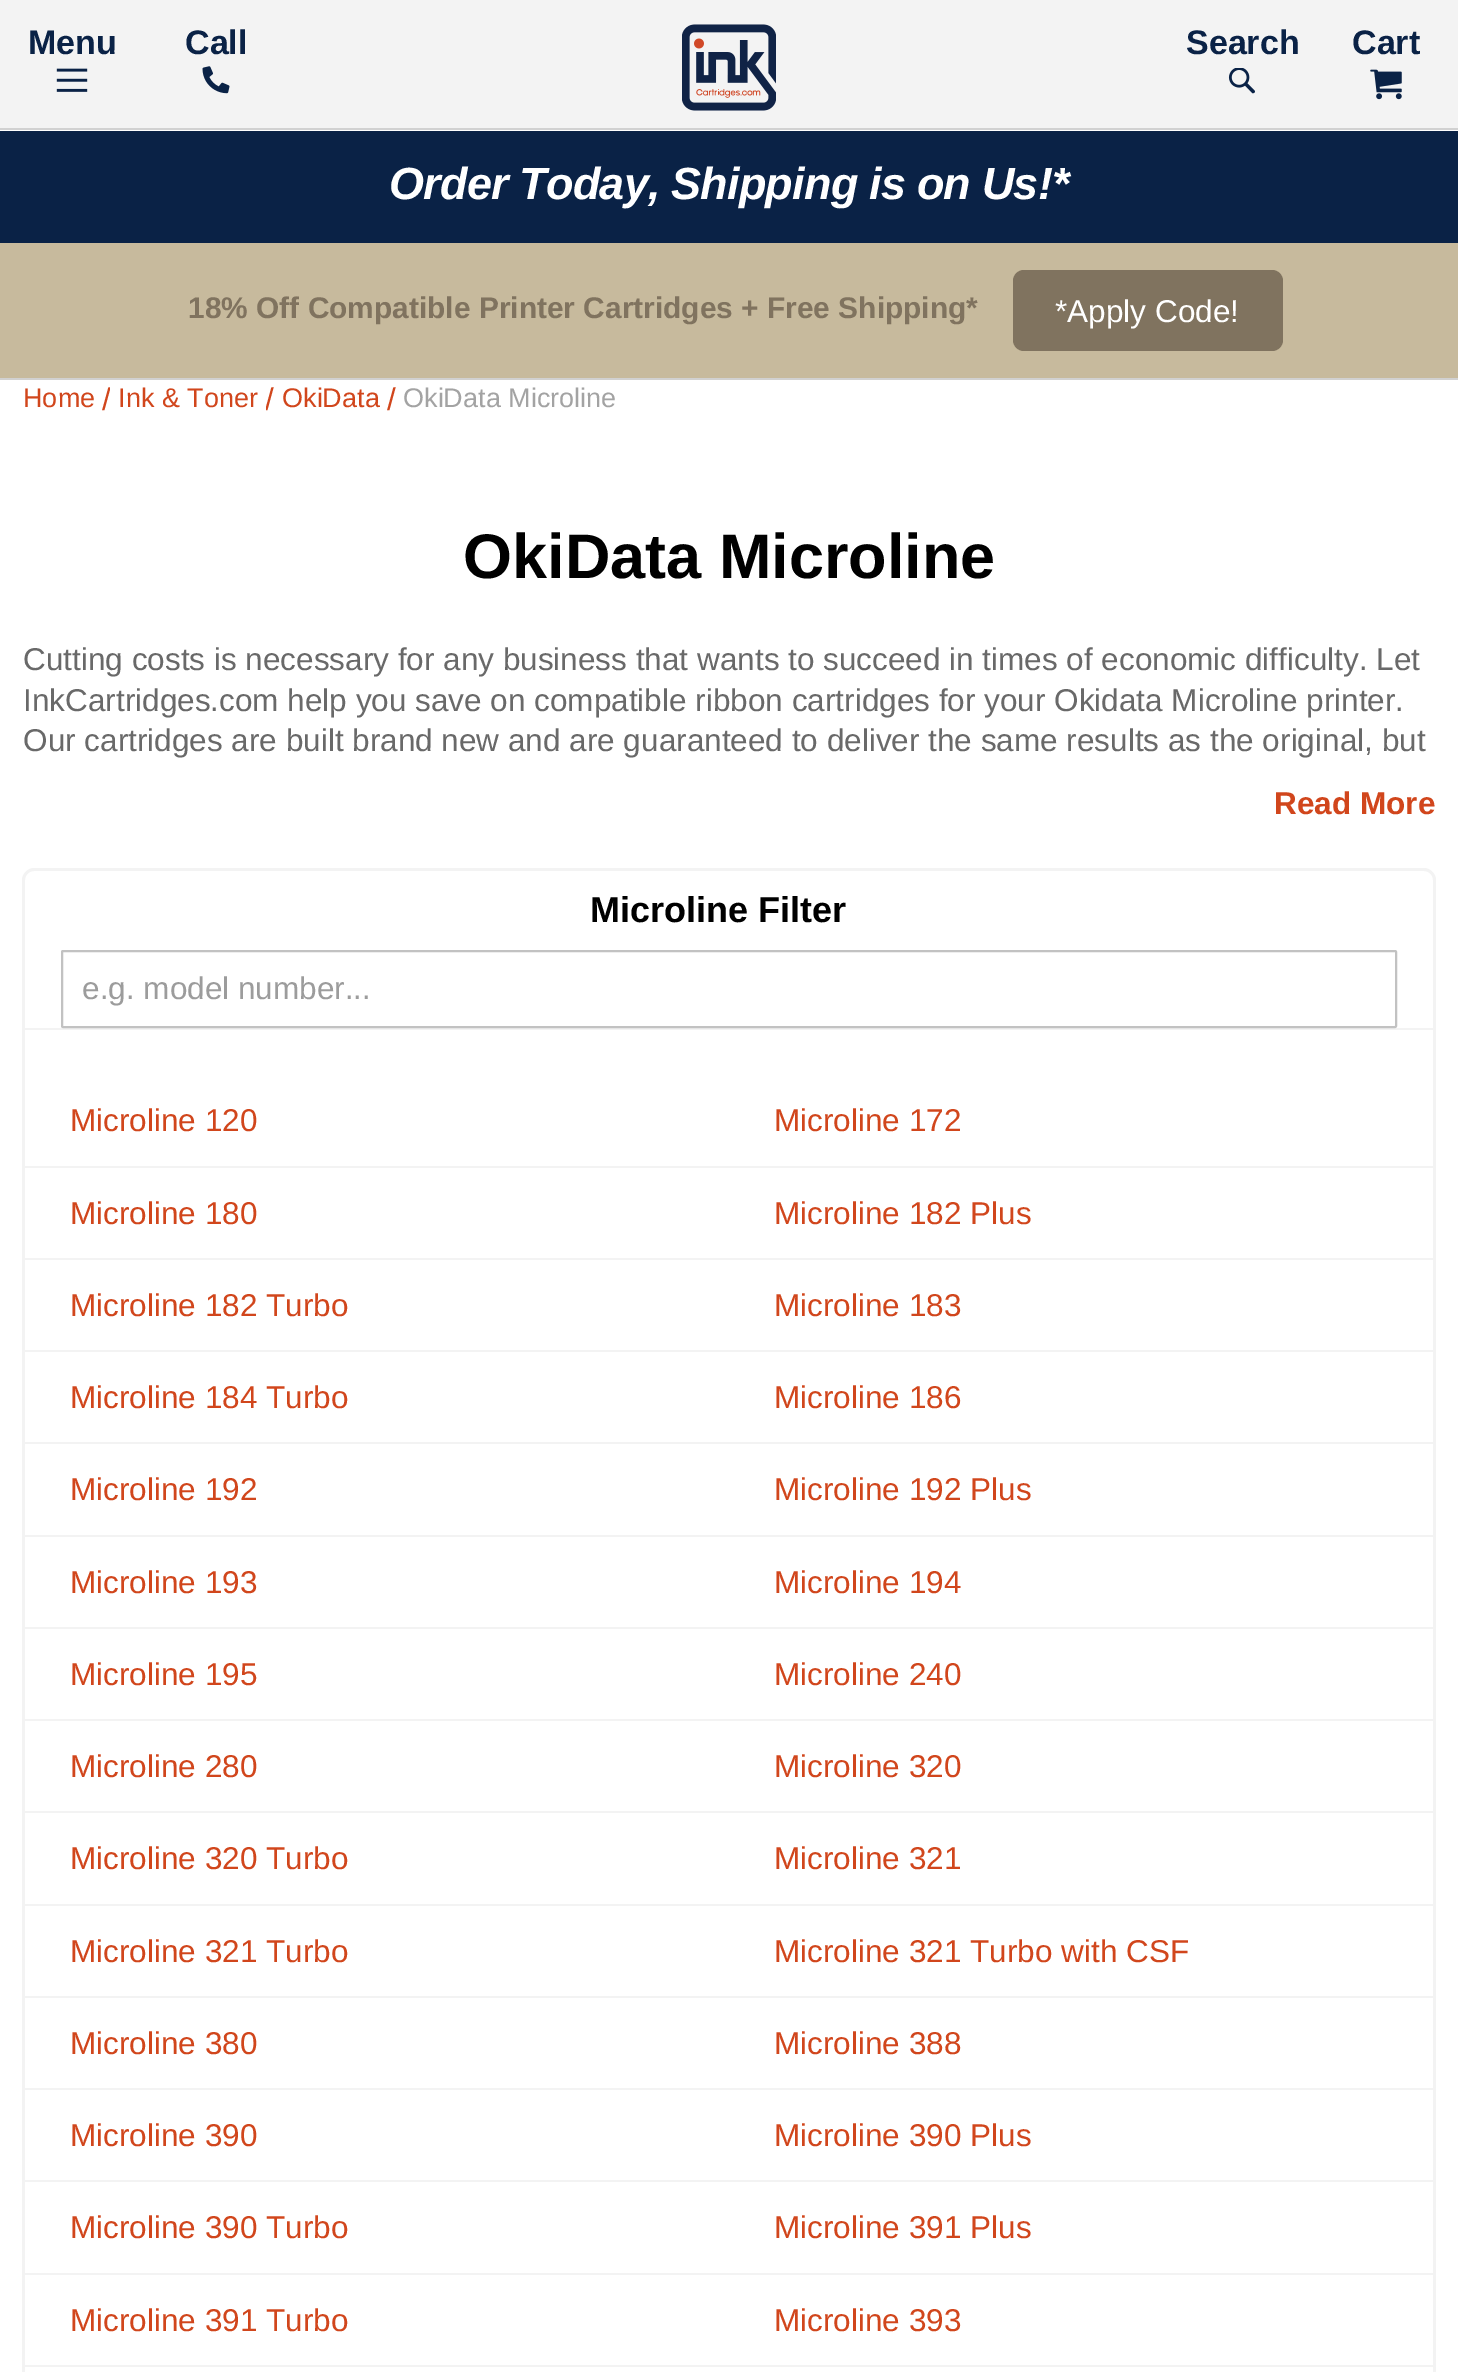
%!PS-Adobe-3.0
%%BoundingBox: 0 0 1458 2372
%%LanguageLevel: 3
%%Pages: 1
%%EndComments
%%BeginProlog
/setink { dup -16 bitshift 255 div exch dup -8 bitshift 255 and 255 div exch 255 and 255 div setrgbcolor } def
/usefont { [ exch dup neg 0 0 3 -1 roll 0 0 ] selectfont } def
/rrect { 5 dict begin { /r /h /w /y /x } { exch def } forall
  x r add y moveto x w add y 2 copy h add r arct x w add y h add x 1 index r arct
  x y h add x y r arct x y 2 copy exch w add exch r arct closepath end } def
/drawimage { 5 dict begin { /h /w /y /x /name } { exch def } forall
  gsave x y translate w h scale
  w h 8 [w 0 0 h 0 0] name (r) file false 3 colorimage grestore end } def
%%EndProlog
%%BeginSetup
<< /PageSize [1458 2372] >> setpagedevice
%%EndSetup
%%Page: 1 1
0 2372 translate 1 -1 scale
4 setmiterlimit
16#FFFFFF setink
0 0 1458 2372 rectfill
16#D1D1D1 setink
0 378 1458 2 rectfill
16#F3F3F3 setink
0 0 1458 128 rectfill
/LiberationSans-Bold 34 usefont
16#0A2246 setink
28 54 moveto (Menu) show
(img1.raw) 56 68 32 24 drawimage
185 54 moveto (Call) show
(img2.raw) 202 66 28 28 drawimage
(img3.raw) 682 24 94 87 drawimage
1186 54 moveto (Search) show
(img4.raw) 1228 68 27 26 drawimage
16#D1D1D1 setink
0 128 1458 2 rectfill
16#0A2246 setink
1352 54 moveto (Cart) show
(img5.raw) 1370 69 32 31 drawimage
0 131 1458 112 rectfill
/LiberationSans-BoldItalic 45 usefont
16#FFFFFF setink
389 199 moveto -0.8 0 (Order Today, Shipping is on Us!*) ashow
16#C7BA9D setink
0 243 1458 135 rectfill
/LiberationSans-Bold 29.9 usefont
16#80735F setink
188 318 moveto (18% Off Compatible Printer Cartridges + Free Shipping*) show
1013 270 270 81 11 rrect fill
/LiberationSans-Regular 31.5 usefont
16#FFFFFF setink
1055 322 moveto (*Apply Code!) show
/LiberationSans-Regular 27 usefont
16#D1461C setink
23 407 moveto (Home) show
gsave
101 380 9 36 rectclip
/LiberationSans-Regular 31.5 usefont
102 410 moveto (/) show
grestore
118 407 moveto (Ink & Toner) show
gsave
266 380 9 36 rectclip
/LiberationSans-Regular 31.5 usefont
265 410 moveto (/) show
grestore
282 407 moveto (OkiData) show
/LiberationSans-Regular 31.5 usefont
387 410 moveto (/) show
/LiberationSans-Regular 27 usefont
16#A3A3A3 setink
403 407 moveto (OkiData Microline) show
/LiberationSans-Bold 63 usefont
16#000000 setink
463 578 moveto (OkiData Microline) show
/LiberationSans-Regular 31.5 usefont
16#696969 setink
[
    [(Cutting costs is necessary for any business that wants to succeed in times of economic difficulty. Let) 23 670]
    [(InkCartridges.com help you save on compatible ribbon cartridges for your Okidata Microline printer.) 23 711]
    [(Our cartridges are built brand new and are guaranteed to deliver the same results as the original, but) 23 751]
] { aload pop moveto show } forall
/LiberationSans-Bold 31.5 usefont
16#D1461C setink
1274 814 moveto (Read More) show
16#F3F3F3 setink
34 868 moveto 1424 868 lineto 1430 868 1436 874 1436 880 curveto 1436 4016 lineto 1436 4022 1430 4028 1424 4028 curveto 34 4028 lineto 28 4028 22 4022 22 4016 curveto 22 880 lineto 22 874 28 868 34 868 curveto closepath 34 871 moveto 1424 871 lineto 1429 871 1433 875 1433 880 curveto 1433 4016 lineto 1433 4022 1429 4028 1424 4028 curveto 34 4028 lineto 29 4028 25 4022 25 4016 curveto 25 880 lineto 25 875 29 871 34 871 curveto closepath eofill
25 1028 1408 2 rectfill
/LiberationSans-Bold 36 usefont
16#000000 setink
590 922 moveto (Microline Filter) show
16#C2C2C2 setink
2 setlinewidth
62 951 1334 76 1 rrect stroke
/LiberationSans-Regular 31.5 usefont
16#9C9C9C setink
82 999 moveto (e.g. model number...) show
16#F3F3F3 setink
25 1166 1408 2 rectfill
16#D1461C setink
70 1131 moveto (Microline 120) show
774 1131 moveto (Microline 172) show
16#F3F3F3 setink
25 1258 1408 2 rectfill
16#D1461C setink
70 1224 moveto (Microline 180) show
774 1224 moveto (Microline 182 Plus) show
16#F3F3F3 setink
25 1350 1408 2 rectfill
16#D1461C setink
70 1316 moveto (Microline 182 Turbo) show
774 1316 moveto (Microline 183) show
16#F3F3F3 setink
25 1442 1408 2 rectfill
16#D1461C setink
70 1408 moveto (Microline 184 Turbo) show
774 1408 moveto (Microline 186) show
16#F3F3F3 setink
25 1535 1408 2 rectfill
16#D1461C setink
70 1500 moveto (Microline 192) show
774 1500 moveto (Microline 192 Plus) show
16#F3F3F3 setink
25 1627 1408 2 rectfill
16#D1461C setink
70 1593 moveto (Microline 193) show
774 1593 moveto (Microline 194) show
16#F3F3F3 setink
25 1719 1408 2 rectfill
16#D1461C setink
70 1685 moveto (Microline 195) show
774 1685 moveto (Microline 240) show
16#F3F3F3 setink
25 1811 1408 2 rectfill
16#D1461C setink
70 1777 moveto (Microline 280) show
774 1777 moveto (Microline 320) show
16#F3F3F3 setink
25 1904 1408 2 rectfill
16#D1461C setink
70 1869 moveto (Microline 320 Turbo) show
774 1869 moveto (Microline 321) show
16#F3F3F3 setink
25 1996 1408 2 rectfill
16#D1461C setink
70 1962 moveto (Microline 321 Turbo) show
774 1962 moveto (Microline 321 Turbo with CSF) show
16#F3F3F3 setink
25 2088 1408 2 rectfill
16#D1461C setink
70 2054 moveto (Microline 380) show
774 2054 moveto (Microline 388) show
16#F3F3F3 setink
25 2180 1408 2 rectfill
16#D1461C setink
70 2146 moveto (Microline 390) show
774 2146 moveto (Microline 390 Plus) show
16#F3F3F3 setink
25 2273 1408 2 rectfill
16#D1461C setink
70 2238 moveto (Microline 390 Turbo) show
774 2238 moveto (Microline 391 Plus) show
16#F3F3F3 setink
25 2365 1408 2 rectfill
16#D1461C setink
70 2331 moveto (Microline 391 Turbo) show
774 2331 moveto (Microline 393) show
showpage
%%EOF
